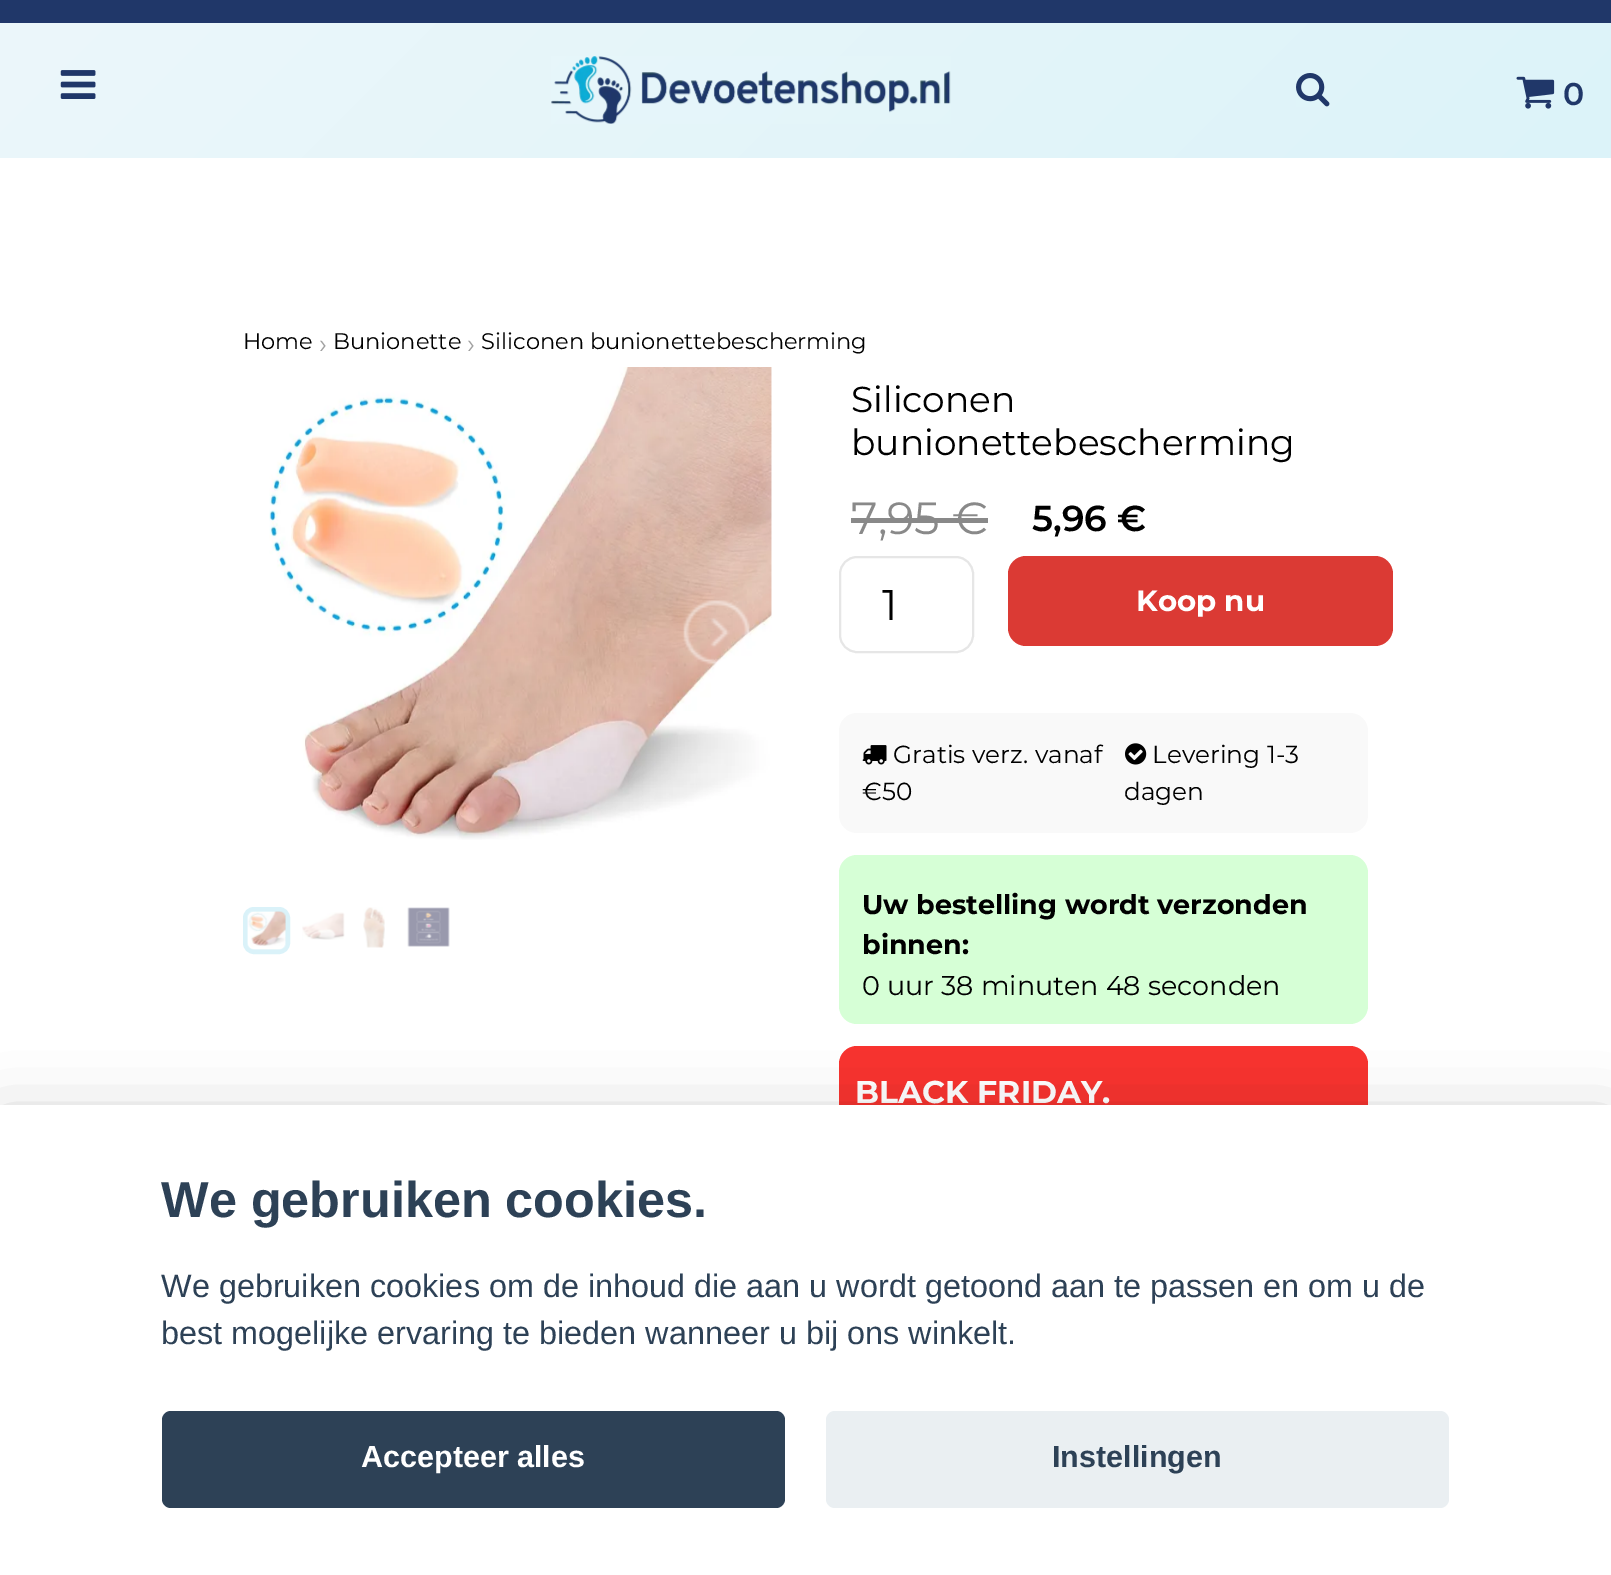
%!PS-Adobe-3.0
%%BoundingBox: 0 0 1611 1575
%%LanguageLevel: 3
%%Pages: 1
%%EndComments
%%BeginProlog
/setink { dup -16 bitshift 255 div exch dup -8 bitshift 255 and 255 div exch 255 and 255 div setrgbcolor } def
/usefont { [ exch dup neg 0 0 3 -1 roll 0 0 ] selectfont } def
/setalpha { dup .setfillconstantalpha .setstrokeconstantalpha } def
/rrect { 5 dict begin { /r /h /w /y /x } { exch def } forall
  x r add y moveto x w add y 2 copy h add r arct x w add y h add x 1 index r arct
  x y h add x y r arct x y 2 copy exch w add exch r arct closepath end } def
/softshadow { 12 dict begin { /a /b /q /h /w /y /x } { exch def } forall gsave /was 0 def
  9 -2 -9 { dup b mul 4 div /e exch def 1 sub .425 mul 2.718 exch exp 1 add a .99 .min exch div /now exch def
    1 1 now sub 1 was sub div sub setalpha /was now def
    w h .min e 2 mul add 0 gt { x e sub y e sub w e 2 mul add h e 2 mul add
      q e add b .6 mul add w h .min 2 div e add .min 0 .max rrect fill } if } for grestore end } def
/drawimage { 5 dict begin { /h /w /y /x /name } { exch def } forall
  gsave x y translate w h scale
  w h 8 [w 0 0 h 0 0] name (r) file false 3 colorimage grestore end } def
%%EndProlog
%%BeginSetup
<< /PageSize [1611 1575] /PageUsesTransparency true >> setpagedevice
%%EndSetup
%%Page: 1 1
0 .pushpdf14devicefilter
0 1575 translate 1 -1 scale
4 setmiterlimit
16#FFFFFF setink
0 0 1611 1575 rectfill
gsave 0 23 moveto 1611 23 lineto 1611 158 lineto 0 158 lineto closepath clip newpath
<< /ShadingType 2 /ColorSpace /DeviceRGB /Coords [369 -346 1242 526] /Extend [true true] /Function << /FunctionType 2 /Domain [0 1] /C0 [0.925 0.969 0.98] /C1 [0.863 0.953 0.976] /N 1 >> >> shfill grestore
16#203769 setink
0 0 1611 23 rectfill
(img1.raw) 60 70 36 29 drawimage
(img2.raw) 551 56 400 68 drawimage
(img3.raw) 1296 73 34 34 drawimage
(img4.raw) 1516 76 39 33 drawimage
/Montserrat-SemiBold 31.5 usefont
1563 105 moveto (0) show
/Montserrat-Regular 22.5 usefont
16#000000 setink
243 349 moveto (Home) show
/Montserrat-Regular 27 usefont
16#A1A1A1 setink
319 353 moveto (›) show
/Montserrat-Regular 22.5 usefont
16#000000 setink
333 349 moveto (Bunionette) show
/Montserrat-Regular 27 usefont
16#A1A1A1 setink
467 353 moveto (›) show
/Montserrat-Regular 22.5 usefont
16#000000 setink
481 349 moveto (Siliconen bunionettebescherming) show
(img5.raw) 269 367 503 473 drawimage
0.38 setalpha
16#FFFFFF setink
771 367 1 250 rectfill
1 setalpha
(img6.raw) 308 600 17 13 drawimage
(img7.raw) 683 600 67 65 drawimage
16#DAF2F9 setink
5 setlinewidth
245.5 909.5 42 42 8.5 rrect stroke
(img8.raw) 247 911 39 39 drawimage
(img9.raw) 302 912 43 28 drawimage
(img10.raw) 363 907 22 41 drawimage
(img11.raw) 407 907 43 40 drawimage
/Montserrat-Regular 36 usefont
16#000000 setink
851 412 moveto (Siliconen) show
851 455 moveto (bunionettebescherming) show
/Montserrat-Regular 45 usefont
16#898989 setink
851 534 moveto (7,95 €) show
851 518 137 5 rectfill
/Montserrat-SemiBold 36 usefont
16#000000 setink
1032 531 moveto (5,96 €) show
16#E6E6E6 setink
2 setlinewidth
840 557 133 95 17 rrect stroke
/Montserrat-Regular 43 usefont
16#000000 setink
882 620 moveto (1) show
16#DB3A34 setink
1008 556 385 90 18 rrect fill
/Montserrat-Bold 29.25 usefont
16#FFFFFF setink
1136 611 moveto (Koop nu) show
16#F9F9F9 setink
839 713 529 120 18 rrect fill
(img12.raw) 862 745 25 20 drawimage
/Montserrat-Regular 24.75 usefont
16#000000 setink
893 763 moveto (Gratis verz. vanaf) show
862 800 moveto (€50) show
(img13.raw) 1125 743 22 22 drawimage
1152 763 moveto (Levering 1-3) show
1124 800 moveto (dagen) show
16#D6FFD6 setink
839 855 529 169 18 rrect fill
/Montserrat-Bold 27 usefont
16#000000 setink
862 914 moveto (Uw bestelling wordt verzonden) show
862 954 moveto (binnen:) show
/Montserrat-Regular 27 usefont
862 995 moveto (0 uur 38 minuten 48 seconden) show
16#F8332F setink
839 1046 529 140 18 rrect fill
/Montserrat-Bold 31.5 usefont
16#FFFFFF setink
855 1103 moveto (BLACK FRIDAY.) show
16#020203 setink
0 1127 1611 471 0 34 0.28 softshadow
16#FFFFFF setink
0 1105 1611 470 rectfill
/LiberationSans-Bold 50.4 usefont
16#2D4156 setink
161 1217 moveto (We gebruiken cookies.) show
/LiberationSans-Regular 32.4 usefont
161 1297 moveto (We gebruiken cookies om de inhoud die aan u wordt getoond aan te passen en om u de) show
161 1344 moveto (best mogelijke ervaring te bieden wanneer u bij ons winkelt.) show
162 1411 623 97 9 rrect fill
/LiberationSans-Bold 30.5 usefont
16#FFFFFF setink
361 1467 moveto (Accepteer alles) show
16#EAEFF2 setink
826 1411 623 97 9 rrect fill
16#2D4156 setink
1052 1467 moveto (Instellingen) show
.poppdf14devicefilter showpage
%%EOF
